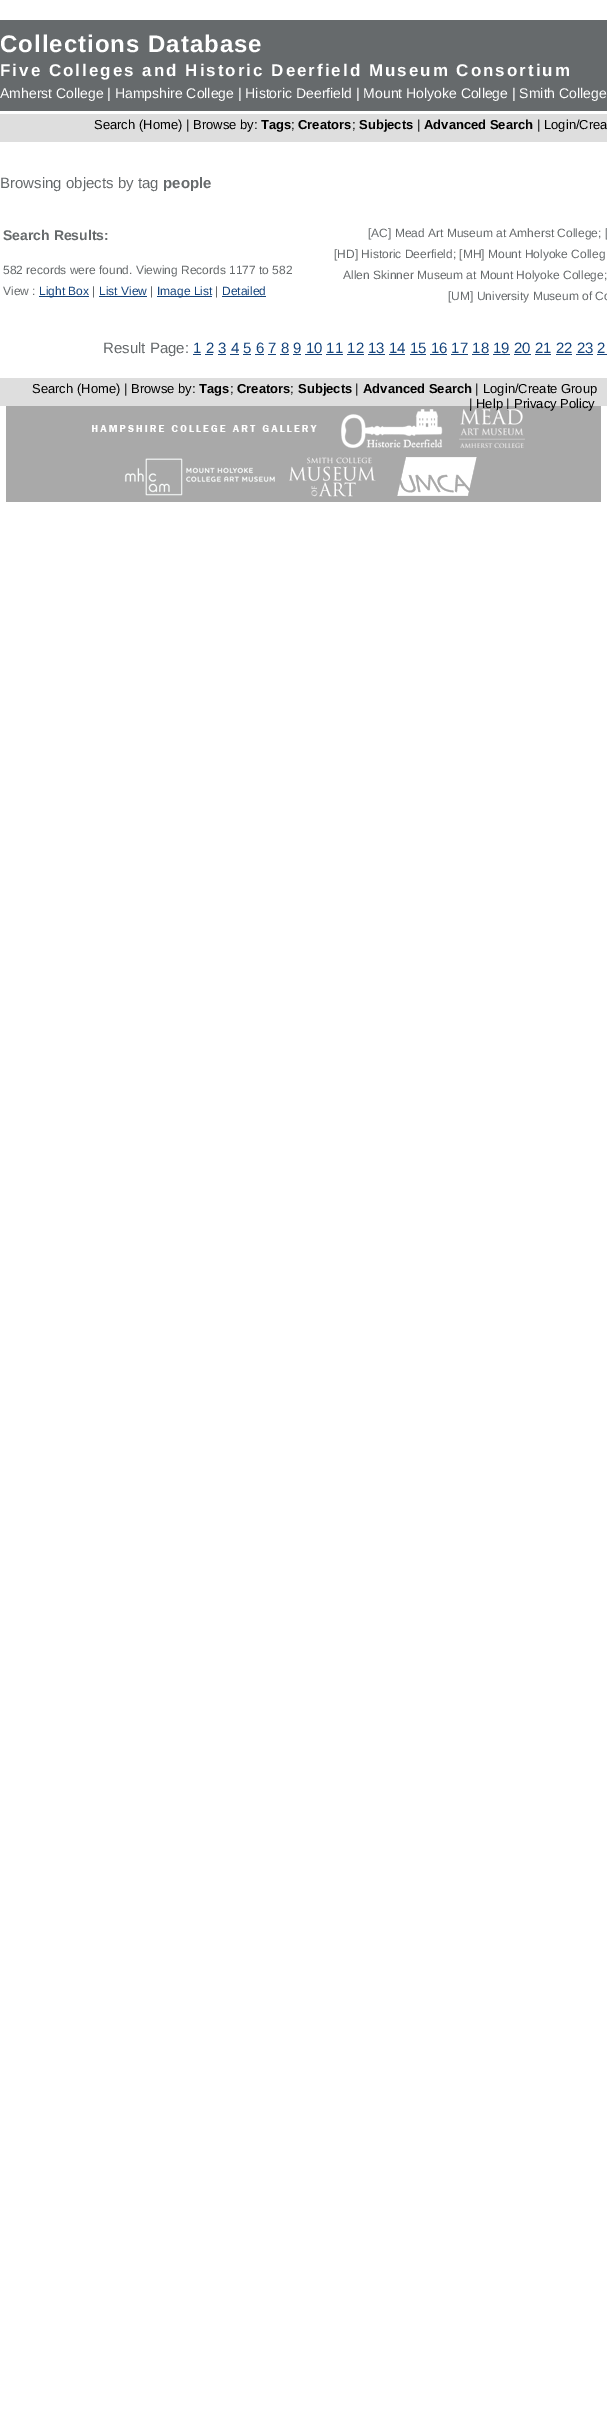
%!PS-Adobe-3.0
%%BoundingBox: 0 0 607 2430
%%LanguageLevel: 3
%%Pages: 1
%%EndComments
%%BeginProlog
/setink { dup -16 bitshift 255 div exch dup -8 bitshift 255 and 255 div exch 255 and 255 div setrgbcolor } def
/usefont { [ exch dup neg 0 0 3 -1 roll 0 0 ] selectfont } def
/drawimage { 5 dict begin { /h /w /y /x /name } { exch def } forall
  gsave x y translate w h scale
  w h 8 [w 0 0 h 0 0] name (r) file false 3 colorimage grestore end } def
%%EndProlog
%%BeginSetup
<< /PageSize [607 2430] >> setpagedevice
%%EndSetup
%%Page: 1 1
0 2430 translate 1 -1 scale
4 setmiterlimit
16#FFFFFF setink
0 0 607 2430 rectfill
16#666A6C setink
0 20 607 91 rectfill
/LiberationSans-Bold 24 usefont
16#FFFFFF setink
0 52 moveto 1 0 (Collections Database) ashow
/LiberationSans-Bold 17 usefont
0 76 moveto 2 0 (Five Colleges and Historic Deerfield Museum Consortium) ashow
/LiberationSans-Regular 14 usefont
0 98 moveto (Amherst College | Hampshire College | Historic Deerfield | Mount Holyoke College | Smith College) show
16#DEDEDE setink
0 114 607 28 rectfill
/LiberationSans-Regular 13 usefont
16#000000 setink
94 129 moveto (Search \(Home\) |) show
193 129 moveto (Browse by:) show
/LiberationSans-Bold 13 usefont
261 129 moveto (Tags) show
/LiberationSans-Regular 13 usefont
291 129 moveto (;) show
/LiberationSans-Bold 13 usefont
298 129 moveto (Creators) show
/LiberationSans-Regular 13 usefont
352 129 moveto (;) show
/LiberationSans-Bold 13 usefont
359 129 moveto (Subjects) show
/LiberationSans-Regular 13 usefont
417 129 moveto (|) show
/LiberationSans-Bold 13 usefont
424 129 moveto (Advanced Search) show
/LiberationSans-Regular 13 usefont
537 129 moveto (|) show
544 129 moveto (Login/Crea) show
/LiberationSans-Regular 15 usefont
16#666A6C setink
0 188 moveto (Browsing objects by tag) show
/LiberationSans-Bold 15 usefont
163 188 moveto (people) show
/LiberationSans-Bold 14 usefont
3 240 moveto (Search Results:) show
/LiberationSans-Regular 12 usefont
3 274 moveto (582 records were found. Viewing Records 1177 to 582) show
3 295 moveto (View :) show
16#15447C setink
39 296 50 1 rectfill
39 295 moveto (Light Box) show
16#666A6C setink
92 295 moveto (|) show
16#15447C setink
99 295 moveto (List View) show
99 296 48 1 rectfill
16#666A6C setink
150 295 moveto (|) show
16#15447C setink
157 296 55 1 rectfill
157 295 moveto (Image List) show
16#666A6C setink
215 295 moveto (|) show
16#15447C setink
222 295 moveto (Detailed) show
222 296 44 1 rectfill
16#666A6C setink
[
    [([AC] Mead Art Museum at Amherst College; [) 368 237]
    [([HD] Historic Deerfield; [MH] Mount Holyoke Colleg) 334 258]
    [(Allen Skinner Museum at Mount Holyoke College;) 343 279]
    [([UM] University Museum of Co) 448 300]
] { aload pop moveto show } forall
/LiberationSans-Regular 15 usefont
103 353 moveto (Result Page:) show
16#15447C setink
193 353 moveto (1 2 3 4 5 6 7 8 9 10 11 12 13 14 15 16 17 18 19 20 21 22 23 2) show
[
    [193 354 8 1 16#15447C]
    [205 354 8 1 16#15447C]
    [218 354 8 1 16#15447C]
    [230 354 9 1 16#15447C]
    [243 354 8 1 16#15447C]
    [255 354 9 1 16#15447C]
    [268 354 8 1 16#15447C]
    [280 354 9 1 16#15447C]
    [293 354 8 1 16#15447C]
    [305 354 17 1 16#15447C]
    [326 354 17 1 16#15447C]
    [347 354 17 1 16#15447C]
    [368 354 17 1 16#15447C]
    [389 354 16 1 16#15447C]
    [410 354 16 1 16#15447C]
    [430 354 17 1 16#15447C]
    [451 354 17 1 16#15447C]
    [472 354 17 1 16#15447C]
    [493 354 17 1 16#15447C]
    [514 354 17 1 16#15447C]
    [535 354 16 1 16#15447C]
    [556 354 16 1 16#15447C]
    [576 354 17 1 16#15447C]
    [597 354 10 1 16#15447C]
    [0 378 607 28 16#DEDEDE]
] { aload pop setink rectfill } forall
/LiberationSans-Regular 13 usefont
16#000000 setink
32 393 moveto (Search \(Home\) |) show
131 393 moveto (Browse by:) show
/LiberationSans-Bold 13 usefont
199 393 moveto (Tags) show
/LiberationSans-Regular 13 usefont
230 393 moveto (;) show
/LiberationSans-Bold 13 usefont
237 393 moveto (Creators) show
/LiberationSans-Regular 13 usefont
290 393 moveto (;) show
/LiberationSans-Bold 13 usefont
298 393 moveto (Subjects) show
/LiberationSans-Regular 13 usefont
355 393 moveto (|) show
/LiberationSans-Bold 13 usefont
363 393 moveto (Advanced Search) show
/LiberationSans-Regular 13 usefont
475 393 moveto (|) show
483 393 moveto (Login/Create Group) show
16#A9A9A9 setink
6 406 595 96 rectfill
16#000000 setink
[
    [(|) 469 408]
    [(Help |) 476 408]
    [(Privacy Policy) 514 408]
] { aload pop moveto show } forall
(img1.raw) 92 425 225 7 drawimage
(img2.raw) 341 409 102 39 drawimage
(img3.raw) 459 409 66 39 drawimage
(img4.raw) 124 458 151 38 drawimage
(img5.raw) 289 457 87 40 drawimage
(img6.raw) 397 457 80 39 drawimage
showpage
%%EOF
